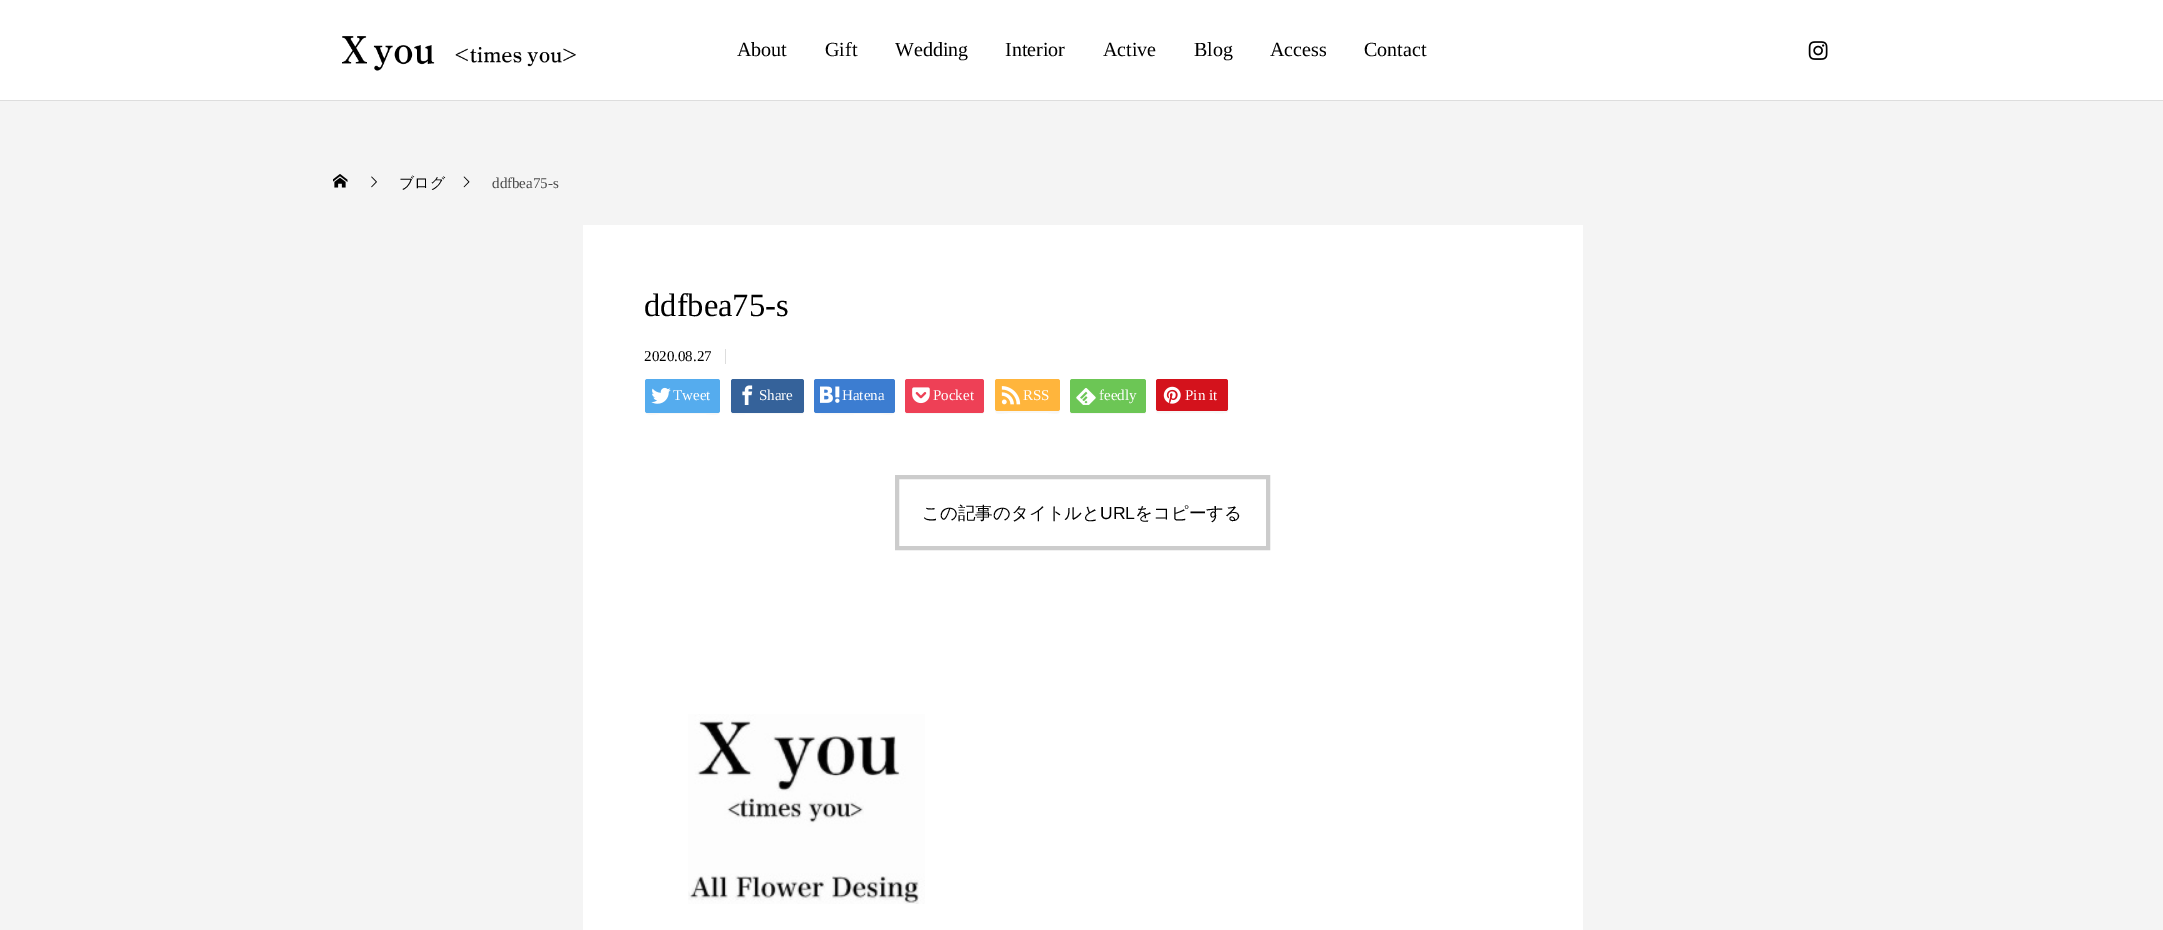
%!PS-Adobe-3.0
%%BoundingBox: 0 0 2163 930
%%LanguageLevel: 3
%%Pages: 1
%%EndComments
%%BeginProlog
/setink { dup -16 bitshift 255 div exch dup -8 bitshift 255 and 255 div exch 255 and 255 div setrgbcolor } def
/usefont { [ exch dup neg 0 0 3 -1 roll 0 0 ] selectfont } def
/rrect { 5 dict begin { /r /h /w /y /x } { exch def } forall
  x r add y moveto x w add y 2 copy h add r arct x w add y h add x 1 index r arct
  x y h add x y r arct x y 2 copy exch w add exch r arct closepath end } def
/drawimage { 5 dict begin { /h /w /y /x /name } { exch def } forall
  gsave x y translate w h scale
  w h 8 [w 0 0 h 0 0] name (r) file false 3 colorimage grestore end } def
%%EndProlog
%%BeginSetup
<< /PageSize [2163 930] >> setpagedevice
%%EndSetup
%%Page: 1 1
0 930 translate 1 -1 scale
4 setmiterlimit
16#FFFFFF setink
0 0 2163 930 rectfill
(img1.raw) 342 36 234 35 drawimage
/LiberationSerif-Regular 20 usefont
16#000000 setink
[
    [(About) 737 56]
    [(Gift) 825 56]
    [(Wedding) 895 56]
    [(Interior) 1005 56]
    [(Active) 1103 56]
    [(Blog) 1194 56]
    [(Access) 1270 56]
    [(Contact) 1364 56]
] { aload pop moveto show } forall
(img2.raw) 1808 41 20 19 drawimage
16#F4F4F4 setink
0 101 2163 829 rectfill
16#DDDDDD setink
0 100 2163 1 rectfill
(img3.raw) 333 174 15 14 drawimage
(img4.raw) 371 176 6 12 drawimage
/WenQuanYiZenHei-Medium 15 usefont
16#000000 setink
399 188 moveto (ブログ) show
(img5.raw) 463 176 7 12 drawimage
/LiberationSerif-Regular 15 usefont
16#494949 setink
492 188 moveto (ddfbea75-s) show
16#FFFFFF setink
583 225 1000 705 rectfill
/LiberationSerif-Regular 32.5 usefont
16#000000 setink
644 316 moveto (ddfbea75-s) show
16#DDDDDD setink
725 349 1 15 rectfill
/LiberationSerif-Regular 15 usefont
16#000000 setink
644 361 moveto (2020.08.27) show
16#F7F7F7 setink
645 410 moveto 645 417 654 414 659 414 curveto 706 414 lineto 711 414 720 417 720 410 curveto 720 411 719 412 718 412 curveto 648 412 lineto 646 412 645 411 645 410 curveto closepath fill
16#55ACEE setink
645 379 75 34 2.5 rrect fill
(img6.raw) 651 387 20 17 drawimage
16#FFFFFF setink
673 400 moveto (Tweet) show
16#F7F7F7 setink
731 381 moveto 731 402 lineto 731 417 729 414 745 414 curveto 790 414 lineto 806 414 804 417 804 402 curveto 804 381 lineto 804 410 lineto 804 411 803 412 801 412 curveto 734 412 lineto 732 412 731 411 731 410 curveto closepath fill
16#35629A setink
731 379 73 34 2.5 rrect fill
(img7.raw) 742 385 11 20 drawimage
16#FFFFFF setink
759 400 moveto (Share) show
16#F7F7F7 setink
814 411 moveto 815 413 lineto 816 415 850 414 854 414 curveto 880 414 lineto 885 414 895 417 895 410 curveto 895 411 894 412 892 412 curveto 816 412 lineto 815 412 814 412 814 411 curveto closepath fill
16#3C7DD1 setink
814 379 81 34 2.5 rrect fill
(img8.raw) 820 386 20 17 drawimage
16#FFFFFF setink
842 400 moveto (Hatena) show
16#F7F7F7 setink
905 410 moveto 905 412 905 414 908 414 curveto 982 414 lineto 985 414 984 408 984 407 curveto 984 381 lineto 984 410 lineto 984 411 983 412 981 412 curveto 908 412 lineto 906 412 905 411 905 410 curveto closepath fill
16#EE4056 setink
905 379 79 34 2.5 rrect fill
(img9.raw) 912 387 18 17 drawimage
16#FFFFFF setink
933 400 moveto (Pocket) show
16#F7F7F7 setink
995 409 moveto 995 416 1001 413 1008 413 curveto 1048 413 lineto 1054 413 1060 416 1060 409 curveto 1060 410 1059 411 1058 411 curveto 998 411 lineto 996 411 995 410 995 409 curveto closepath fill
16#FFB53C setink
995 379 65 32 2.5 rrect fill
(img10.raw) 1001 386 20 19 drawimage
16#FFFFFF setink
1023 400 moveto (RSS) show
16#F7F7F7 setink
1070 410 moveto 1070 412 lineto 1070 413 1071 414 1072 414 curveto 1144 414 lineto 1145 414 1146 413 1146 412 curveto 1146 411 lineto 1146 412 1145 412 1144 412 curveto 1072 412 lineto 1071 412 1070 411 1070 410 curveto closepath fill
16#6CC655 setink
1070 379 76 34 2.5 rrect fill
(img11.raw) 1076 388 20 17 drawimage
16#FFFFFF setink
1099 400 moveto (feedly) show
16#F7F7F7 setink
1156 381 moveto 1156 401 lineto 1156 416 1154 413 1170 413 curveto 1214 413 lineto 1232 413 1228 415 1228 396 curveto 1228 394 1229 383 1227 381 curveto 1228 400 lineto 1228 414 1229 411 1214 411 curveto 1170 411 lineto 1158 411 1156 414 1156 404 curveto closepath fill
16#D4121C setink
1156 379 72 32 2.5 rrect fill
(img12.raw) 1163 386 18 18 drawimage
16#FFFFFF setink
1185 400 moveto (Pin it) show
16#CCCCCC setink
4 setlinewidth
897 477 371 71 rectstroke
/WenQuanYiZenHei-Medium 17.5 usefont
16#000000 setink
922 519 moveto (この記事のタイトルと) show
/LiberationSans-Regular 17.5 usefont
1100 519 moveto (URL) show
/WenQuanYiZenHei-Medium 17.5 usefont
1135 519 moveto (をコピーする) show
(img13.raw) 688 714 237 190 drawimage
showpage
%%EOF
